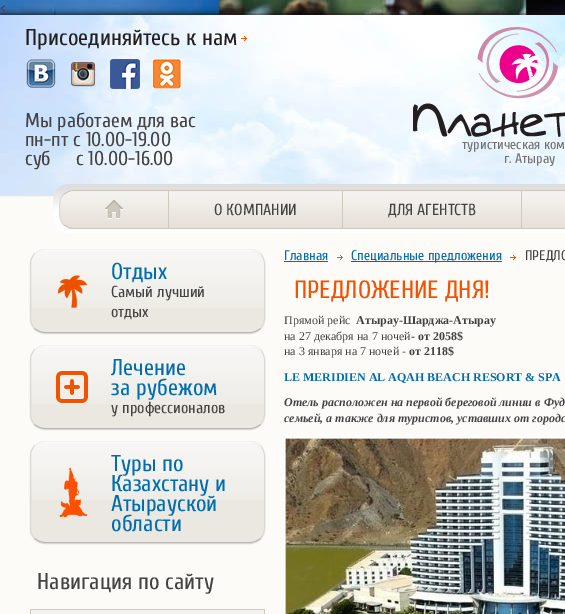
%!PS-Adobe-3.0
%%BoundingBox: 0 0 565 614
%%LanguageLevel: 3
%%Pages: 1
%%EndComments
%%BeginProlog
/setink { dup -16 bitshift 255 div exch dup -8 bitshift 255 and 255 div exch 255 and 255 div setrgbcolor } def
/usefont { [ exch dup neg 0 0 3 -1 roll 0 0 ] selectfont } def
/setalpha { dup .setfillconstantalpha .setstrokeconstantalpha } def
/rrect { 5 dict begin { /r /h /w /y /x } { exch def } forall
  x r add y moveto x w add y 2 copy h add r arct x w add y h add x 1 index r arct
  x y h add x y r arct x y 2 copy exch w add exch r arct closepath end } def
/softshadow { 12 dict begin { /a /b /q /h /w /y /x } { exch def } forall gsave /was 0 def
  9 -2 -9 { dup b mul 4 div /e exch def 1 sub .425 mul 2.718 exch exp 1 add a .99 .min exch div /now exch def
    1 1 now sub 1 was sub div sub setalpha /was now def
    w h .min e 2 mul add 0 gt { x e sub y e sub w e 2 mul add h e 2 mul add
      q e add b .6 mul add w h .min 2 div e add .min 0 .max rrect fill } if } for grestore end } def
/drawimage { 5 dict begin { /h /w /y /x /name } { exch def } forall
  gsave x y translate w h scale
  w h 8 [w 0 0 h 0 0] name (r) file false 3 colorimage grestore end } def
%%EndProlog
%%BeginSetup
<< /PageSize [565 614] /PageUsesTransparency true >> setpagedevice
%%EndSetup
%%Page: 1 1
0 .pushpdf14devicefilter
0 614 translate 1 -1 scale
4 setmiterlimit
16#FFFFFF setink
0 0 565 614 rectfill
(img1.raw) 0 0 565 15 drawimage
16#111111 setink
-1 14 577 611 0 3.5 1 softshadow
/Cuprum-Regular 14 usefont
16#434343 setink
0 12 moveto (<) show
16#FCFBF8 setink
0 197 565 417 rectfill
(img2.raw) 0 15 565 182 drawimage
(img3.raw) 241 36 6 5 drawimage
/Cuprum-Regular 23 usefont
16#231F20 setink
25 45 moveto (Присоединяйтесь к нам) show
(img4.raw) 26 59 30 29 drawimage
(img5.raw) 69 62 28 25 drawimage
(img6.raw) 110 59 30 30 drawimage
(img7.raw) 152 59 30 30 drawimage
/Cuprum-Regular 20 usefont
16#434343 setink
[
    [(Мы работаем для вас) 25 127]
    [(пн-пт с 10.00-19.00) 25 146]
    [(суб     с 10.00-16.00) 25 165]
] { aload pop moveto show } forall
(img8.raw) 413 27 152 110 drawimage
/Cuprum-Regular 14 usefont
16#717171 setink
462 149 moveto (туристическая ком) show
504 163 moveto (г. Атырау) show
(img9.raw) 53 184 512 49 drawimage
gsave
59 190 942 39 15 rrect clip newpath
16#DDDDDD setink
59 191 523 39 15 0.5 1 softshadow
grestore
(img10.raw) 59 191 506 37 drawimage
gsave
59 190 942 39 15 rrect clip newpath
16#CFC8BC setink
63.5 194.5 moveto 66.5 192 70 190.5 74 190.5 curveto 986 190.5 lineto 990 190.5 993.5 192 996.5 194.5 curveto stroke
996.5 224.5 moveto 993.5 227 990 228.5 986 228.5 curveto 74 228.5 lineto 70 228.5 66.5 227 63.5 224.5 curveto stroke
16#DDDAD4 setink
63.5 224.5 moveto 59.5 220 59.5 215 59.5 209.5 curveto 59.5 204 59.5 199 63.5 194.5 curveto stroke
grestore
16#CFC8BC setink
168 191 1 37 rectfill
(img11.raw) 105 200 18 19 drawimage
342 191 1 38 rectfill
/Cuprum-Regular 16 usefont
16#434343 setink
214 215 moveto (О КОМПАНИИ) show
16#CFC8BC setink
521 191 1 38 rectfill
16#434343 setink
388 215 moveto (ДЛЯ АГЕНТСТВ) show
16#DDDDDD setink
30 250 235 84 15 0.5 1 softshadow
16#EBE8E2 setink
30 249 235 84 15 rrect fill
(img12.raw) 30 250 235 58 drawimage
16#F1F0ED setink
34.5 253.5 moveto 37.5 251 41 249.5 45 249.5 curveto 250 249.5 lineto 254 249.5 257.5 251 260.5 253.5 curveto stroke
16#DADAD7 setink
260.5 253.5 moveto 263 256.5 264.5 260 264.5 264 curveto 264.5 318 lineto 264.5 322 263 325.5 260.5 328.5 curveto stroke
16#B9B8B6 setink
260.5 328.5 moveto 257.5 331 254 332.5 250 332.5 curveto 45 332.5 lineto 41 332.5 37.5 331 34.5 328.5 curveto stroke
16#DADAD7 setink
34.5 328.5 moveto 32 325.5 30.5 322 30.5 318 curveto 30.5 264 lineto 30.5 260 32 256.5 34.5 253.5 curveto stroke
/Cuprum-Regular 23 usefont
16#016CAE setink
111 279 moveto (Отдых) show
(img13.raw) 57 275 31 33 drawimage
/Cuprum-Regular 16 usefont
16#434343 setink
111 297 moveto (Самый лучший) show
111 317 moveto (отдых) show
16#DDDDDD setink
30 346 235 84 15 0.5 1 softshadow
16#EBE8E2 setink
30 345 235 84 15 rrect fill
(img14.raw) 30 346 235 58 drawimage
16#F1F0ED setink
34.5 349.5 moveto 37.5 347 41 345.5 45 345.5 curveto 250 345.5 lineto 254 345.5 257.5 347 260.5 349.5 curveto stroke
16#DADAD7 setink
260.5 349.5 moveto 263 352.5 264.5 356 264.5 360 curveto 264.5 414 lineto 264.5 418 263 421.5 260.5 424.5 curveto stroke
16#B9B8B6 setink
260.5 424.5 moveto 257.5 427 254 428.5 250 428.5 curveto 45 428.5 lineto 41 428.5 37.5 427 34.5 424.5 curveto stroke
16#DADAD7 setink
34.5 424.5 moveto 32 421.5 30.5 418 30.5 414 curveto 30.5 360 lineto 30.5 356 32 352.5 34.5 349.5 curveto stroke
/Cuprum-Regular 23 usefont
16#016CAE setink
111 375 moveto (Лечение) show
(img15.raw) 56 371 32 33 drawimage
111 395 moveto (за рубежом) show
/Cuprum-Regular 16 usefont
16#434343 setink
111 413 moveto (у профессионалов) show
16#DDDDDD setink
30 442 235 102 15 0.5 1 softshadow
16#EBE8E2 setink
30 441 235 102 15 rrect fill
(img14.raw) 30 442 235 58 drawimage
16#F1F0ED setink
34.5 445.5 moveto 37.5 443 41 441.5 45 441.5 curveto 250 441.5 lineto 254 441.5 257.5 443 260.5 445.5 curveto stroke
16#DADAD7 setink
260.5 445.5 moveto 263 448.5 264.5 452 264.5 456 curveto 264.5 528 lineto 264.5 532 263 535.5 260.5 538.5 curveto stroke
16#B9B8B6 setink
260.5 538.5 moveto 257.5 541 254 542.5 250 542.5 curveto 45 542.5 lineto 41 542.5 37.5 541 34.5 538.5 curveto stroke
16#DADAD7 setink
34.5 538.5 moveto 32 535.5 30.5 532 30.5 528 curveto 30.5 456 lineto 30.5 452 32 448.5 34.5 445.5 curveto stroke
(img16.raw) 59 467 29 50 drawimage
/Cuprum-Regular 23 usefont
16#016CAE setink
[
    [(Туры по) 111 471]
    [(Казахстану и) 111 491]
    [(Атырауской) 111 511]
    [(области) 111 531]
] { aload pop moveto show } forall
16#434343 setink
37 589 moveto (Навигация по сайту) show
[
    [30 609 235 1 16#CFC8BC]
    [30 610 235 4 16#F5F3EF]
    [264 610 1 4 16#CFC8BC]
    [30 610 1 4 16#CFC8BC]
] { aload pop setink rectfill } forall
/Cuprum-Regular 14 usefont
16#016CAE setink
284 260 moveto (Главная) show
284 261 44 1 rectfill
(img17.raw) 337 255 6 5 drawimage
351 261 151 1 rectfill
351 260 moveto (Специальные предложения) show
(img17.raw) 510 255 6 5 drawimage
16#434343 setink
525 260 moveto (ПРЕДЛО) show
/Cuprum-Regular 25 usefont
16#F45100 setink
294 298 moveto (ПРЕДЛОЖЕНИЕ ДНЯ!) show
/LiberationSerif-Regular 12 usefont
16#434343 setink
284 324 moveto (Прямой рейс) show
/LiberationSerif-Bold 12 usefont
356 324 moveto (Атырау-Шарджа-Атырау) show
/LiberationSerif-Regular 12 usefont
284 340 moveto (на 27 декабря на 7 ночей) show
/LiberationSerif-Bold 12 usefont
411 340 moveto (- от 2058$) show
/LiberationSerif-Regular 12 usefont
284 355 moveto (на 3 января на 7 ночей -) show
/LiberationSerif-Bold 12 usefont
409 355 moveto (от 2118$) show
16#016CAE setink
284 381 moveto (LE MERIDIEN AL AQAH BEACH RESORT & SPA) show
/LiberationSerif-BoldItalic 12 usefont
16#434343 setink
284 406 moveto (Отель расположен на первой береговой линии в Фуд) show
284 422 moveto (семьей, а также для туристов, уставших от городс) show
(img18.raw) 284 437 281 177 drawimage
.poppdf14devicefilter showpage
%%EOF
